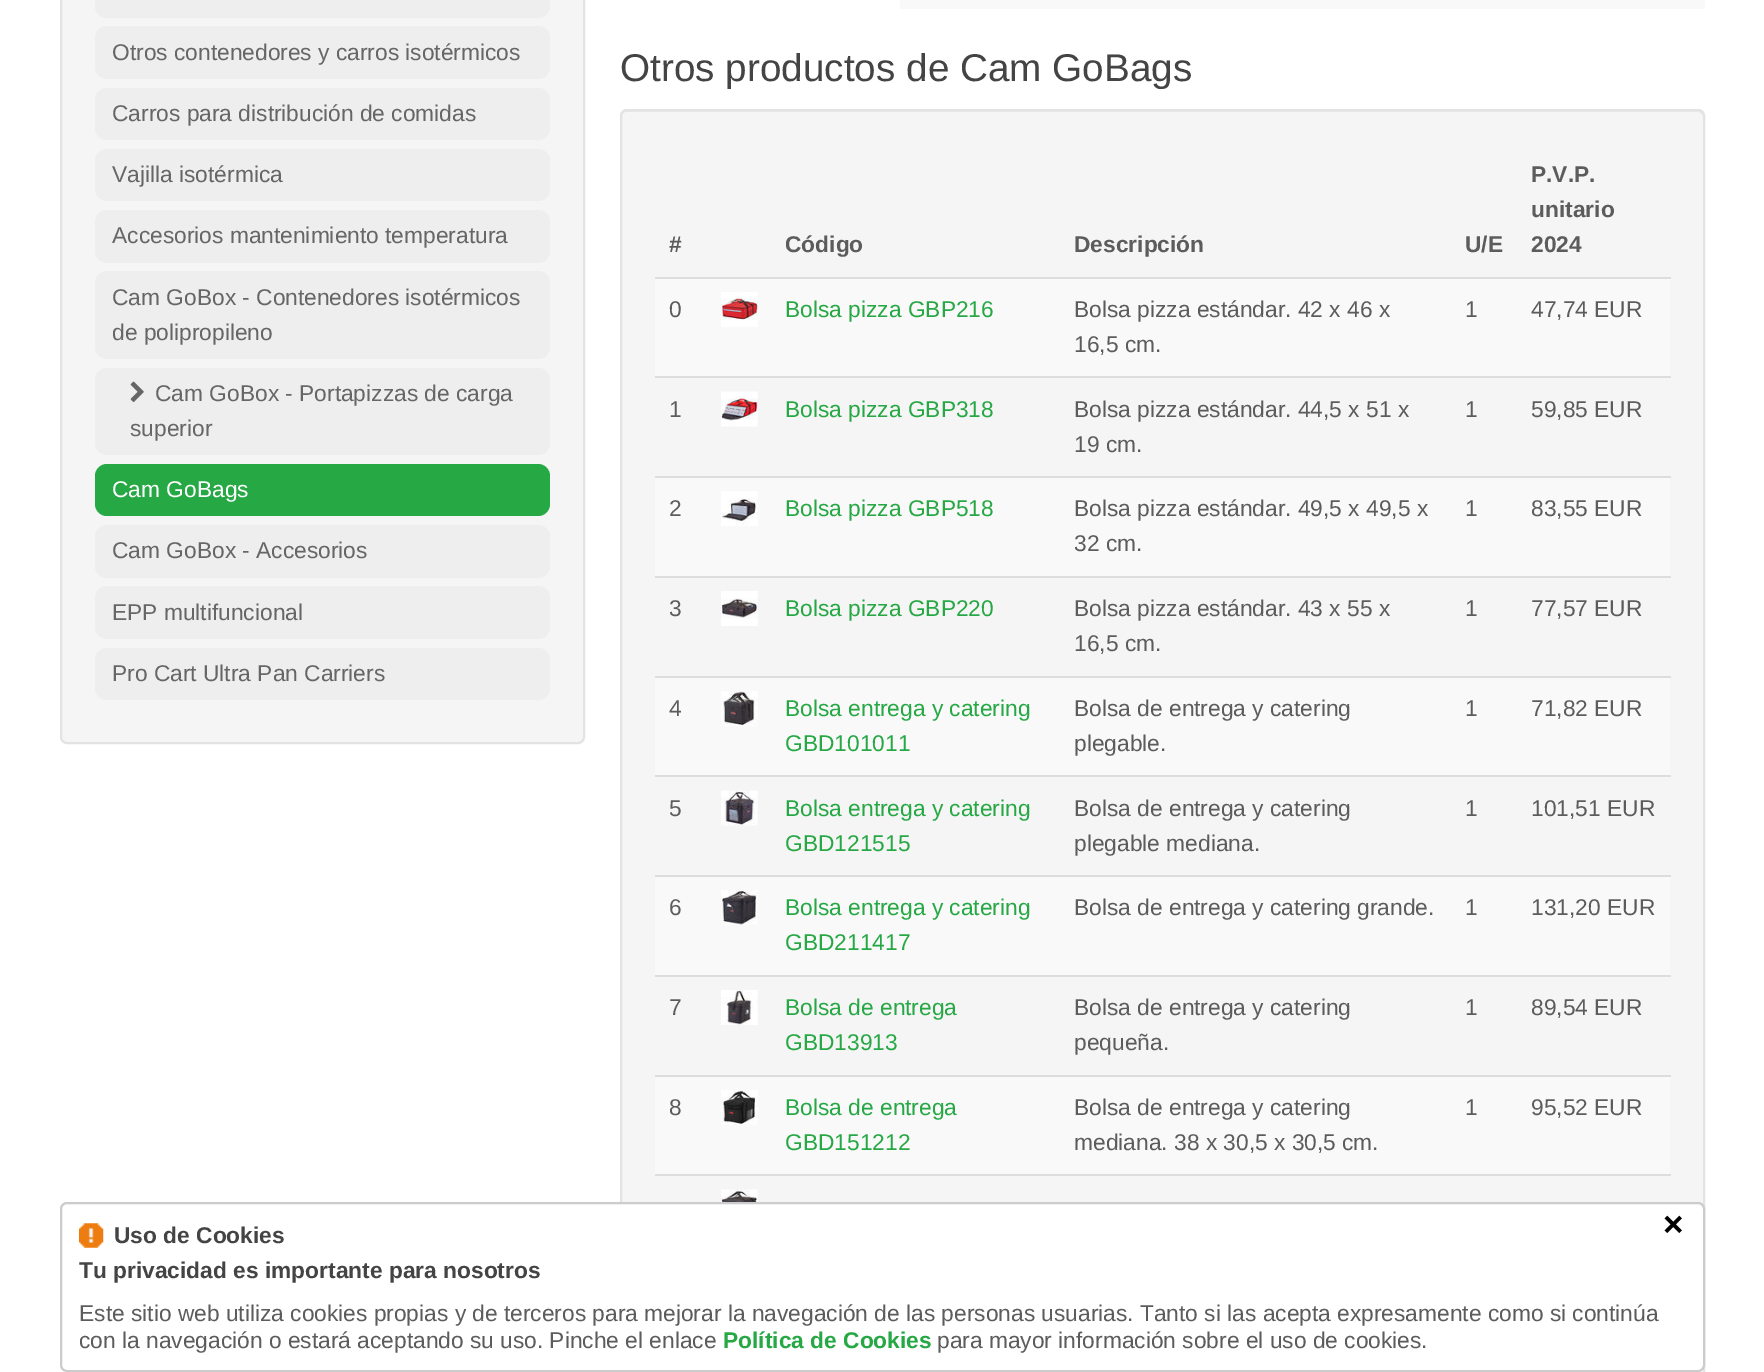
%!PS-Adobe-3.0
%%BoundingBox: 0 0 1764 1372
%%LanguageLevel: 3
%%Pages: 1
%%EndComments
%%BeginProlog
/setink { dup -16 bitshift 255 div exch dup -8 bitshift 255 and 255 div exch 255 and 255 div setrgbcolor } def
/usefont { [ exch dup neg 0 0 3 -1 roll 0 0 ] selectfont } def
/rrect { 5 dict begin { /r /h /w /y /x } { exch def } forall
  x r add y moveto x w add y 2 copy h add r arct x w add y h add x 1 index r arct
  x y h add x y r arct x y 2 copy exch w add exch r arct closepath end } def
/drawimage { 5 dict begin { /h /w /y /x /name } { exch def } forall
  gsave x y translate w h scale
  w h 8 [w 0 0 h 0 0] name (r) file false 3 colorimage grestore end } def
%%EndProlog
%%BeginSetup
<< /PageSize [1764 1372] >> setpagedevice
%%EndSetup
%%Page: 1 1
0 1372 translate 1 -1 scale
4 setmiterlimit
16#FFFFFF setink
0 0 1764 1372 rectfill
16#F5F5F5 setink
61 -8 523 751 6 rrect gsave fill grestore
16#E3E3E3 setink
2 setlinewidth
stroke
16#EEEEEE setink
95 -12 455 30 12 rrect fill
95 26 455 53 12 rrect fill
/LiberationSans-Regular 22.75 usefont
16#666666 setink
112 60 moveto (Otros contenedores y carros isotérmicos) show
16#EEEEEE setink
95 88 455 52 12 rrect fill
16#666666 setink
112 121 moveto (Carros para distribución de comidas) show
16#EEEEEE setink
95 149 455 52 12 rrect fill
16#666666 setink
112 182 moveto (Vajilla isotérmica) show
16#EEEEEE setink
95 210 455 53 12 rrect fill
16#666666 setink
112 243 moveto (Accesorios mantenimiento temperatura) show
16#EEEEEE setink
95 271 455 88 12 rrect fill
16#666666 setink
112 305 moveto (Cam GoBox - Contenedores isotérmicos) show
112 340 moveto (de polipropileno) show
16#EEEEEE setink
95 368 455 87 12 rrect fill
(img1.raw) 130 381 14 21 drawimage
16#666666 setink
155 401 moveto (Cam GoBox - Portapizzas de carga) show
130 436 moveto (superior) show
16#26A844 setink
95 464 455 52 12 rrect fill
16#FFFFFF setink
112 497 moveto (Cam GoBags) show
16#EEEEEE setink
95 525 455 53 12 rrect fill
16#666666 setink
112 558 moveto (Cam GoBox - Accesorios) show
16#EEEEEE setink
95 586 455 53 12 rrect fill
16#666666 setink
112 620 moveto (EPP multifuncional) show
16#EEEEEE setink
95 648 455 52 12 rrect fill
16#666666 setink
112 681 moveto (Pro Cart Ultra Pan Carriers) show
16#F9F9F9 setink
900 0 805 9 rectfill
/LiberationSans-Regular 38.7 usefont
16#444444 setink
620 81 moveto (Otros productos de Cam GoBags) show
16#F5F5F5 setink
620 109 1085 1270 7 rrect fill
16#E9E9E9 setink
626 112 moveto 1698 112 lineto 1700 112 1703 114 1703 117 curveto 1703 115 lineto 1703 112 1701 110 1698 110 curveto 626 110 lineto 623 110 621 112 621 115 curveto 621 117 lineto 621 114 624 112 626 112 curveto closepath fill
16#E3E3E3 setink
621 110 1083 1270 6 rrect stroke
/LiberationSans-Bold 22.75 usefont
16#5C5C5C setink
[
    [(#) 669 252]
    [(Código) 785 252]
    [(Descripción) 1074 252]
    [(U/E) 1465 252]
    [(P.V.P.) 1531 182]
    [(unitario) 1531 217]
    [(2024) 1531 252]
] { aload pop moveto show } forall
16#F9F9F9 setink
655 279 1015 97 rectfill
/LiberationSans-Regular 22.75 usefont
16#5C5C5C setink
669 317 moveto (0) show
(img2.raw) 721 292 37 35 drawimage
16#26A844 setink
785 317 moveto (Bolsa pizza GBP216) show
16#5C5C5C setink
[
    [(Bolsa pizza estándar. 42 x 46 x) 1074 317]
    [(16,5 cm.) 1074 352]
    [(1) 1465 317]
] { aload pop moveto show } forall
16#DDDDDD setink
655 277 1016 2 rectfill
16#5C5C5C setink
1531 317 moveto (47,74 EUR) show
669 417 moveto (1) show
(img3.raw) 721 391 37 36 drawimage
16#26A844 setink
785 417 moveto (Bolsa pizza GBP318) show
16#5C5C5C setink
[
    [(Bolsa pizza estándar. 44,5 x 51 x) 1074 417]
    [(19 cm.) 1074 452]
    [(1) 1465 417]
] { aload pop moveto show } forall
16#DDDDDD setink
655 376 1016 2 rectfill
16#5C5C5C setink
1531 417 moveto (59,85 EUR) show
16#F9F9F9 setink
655 478 1015 98 rectfill
16#5C5C5C setink
669 516 moveto (2) show
(img4.raw) 721 491 37 35 drawimage
16#26A844 setink
785 516 moveto (Bolsa pizza GBP518) show
16#5C5C5C setink
[
    [(Bolsa pizza estándar. 49,5 x 49,5 x) 1074 516]
    [(32 cm.) 1074 551]
    [(1) 1465 516]
] { aload pop moveto show } forall
16#DDDDDD setink
655 476 1016 2 rectfill
16#5C5C5C setink
1531 516 moveto (83,55 EUR) show
669 616 moveto (3) show
(img5.raw) 721 591 37 35 drawimage
16#26A844 setink
785 616 moveto (Bolsa pizza GBP220) show
16#5C5C5C setink
[
    [(Bolsa pizza estándar. 43 x 55 x) 1074 616]
    [(16,5 cm.) 1074 651]
    [(1) 1465 616]
] { aload pop moveto show } forall
16#DDDDDD setink
655 576 1016 2 rectfill
16#5C5C5C setink
1531 616 moveto (77,57 EUR) show
16#F9F9F9 setink
655 678 1015 97 rectfill
16#5C5C5C setink
669 716 moveto (4) show
(img6.raw) 721 691 37 35 drawimage
16#26A844 setink
785 716 moveto (Bolsa entrega y catering) show
785 751 moveto (GBD101011) show
16#5C5C5C setink
[
    [(Bolsa de entrega y catering) 1074 716]
    [(plegable.) 1074 751]
    [(1) 1465 716]
] { aload pop moveto show } forall
16#DDDDDD setink
655 676 1016 2 rectfill
16#5C5C5C setink
1531 716 moveto (71,82 EUR) show
669 816 moveto (5) show
(img7.raw) 721 790 37 36 drawimage
16#26A844 setink
785 816 moveto (Bolsa entrega y catering) show
785 851 moveto (GBD121515) show
16#5C5C5C setink
[
    [(Bolsa de entrega y catering) 1074 816]
    [(plegable mediana.) 1074 851]
    [(1) 1465 816]
] { aload pop moveto show } forall
16#DDDDDD setink
655 775 1016 2 rectfill
16#5C5C5C setink
1531 816 moveto (101,51 EUR) show
16#F9F9F9 setink
655 877 1015 98 rectfill
16#5C5C5C setink
669 915 moveto (6) show
(img8.raw) 721 890 37 35 drawimage
16#26A844 setink
785 915 moveto (Bolsa entrega y catering) show
785 950 moveto (GBD211417) show
16#5C5C5C setink
1074 915 moveto (Bolsa de entrega y catering grande.) show
1465 915 moveto (1) show
16#DDDDDD setink
655 875 1016 2 rectfill
16#5C5C5C setink
1531 915 moveto (131,20 EUR) show
669 1015 moveto (7) show
(img9.raw) 721 990 37 35 drawimage
16#26A844 setink
785 1015 moveto (Bolsa de entrega) show
785 1050 moveto (GBD13913) show
16#5C5C5C setink
[
    [(Bolsa de entrega y catering) 1074 1015]
    [(pequeña.) 1074 1050]
    [(1) 1465 1015]
] { aload pop moveto show } forall
16#DDDDDD setink
655 975 1016 2 rectfill
16#5C5C5C setink
1531 1015 moveto (89,54 EUR) show
16#F9F9F9 setink
655 1077 1015 97 rectfill
16#5C5C5C setink
669 1115 moveto (8) show
(img10.raw) 721 1090 37 35 drawimage
16#26A844 setink
785 1115 moveto (Bolsa de entrega) show
785 1150 moveto (GBD151212) show
16#5C5C5C setink
[
    [(Bolsa de entrega y catering) 1074 1115]
    [(mediana. 38 x 30,5 x 30,5 cm.) 1074 1150]
    [(1) 1465 1115]
] { aload pop moveto show } forall
16#DDDDDD setink
655 1075 1016 2 rectfill
16#5C5C5C setink
1531 1115 moveto (95,52 EUR) show
16#DDDDDD setink
655 1174 1016 2 rectfill
(img11.raw) 721 1189 37 13 drawimage
16#FFFFFF setink
61 1203 1643 168 6 rrect gsave fill grestore
16#CCCCCC setink
stroke
(img12.raw) 79 1223 25 25 drawimage
/LiberationSans-Bold 22.75 usefont
16#444444 setink
114 1243 moveto (Uso de Cookies) show
/LiberationSans-Bold 35 usefont
16#000000 setink
1663 1236 moveto (×) show
/LiberationSans-Bold 22.75 usefont
16#444444 setink
79 1278 moveto (Tu privacidad es importante para nosotros) show
/LiberationSans-Regular 22.75 usefont
16#5C5C5C setink
79 1321 moveto (Este sitio web utiliza cookies propias y de terceros para mejorar la navegación de las personas usuarias. Tanto si las acepta expresamente como si continúa) show
79 1348 moveto (con la navegación o estará aceptando su uso. Pinche el enlace) show
/LiberationSans-Bold 22.75 usefont
16#26A844 setink
723 1348 moveto (Política de Cookies) show
/LiberationSans-Regular 22.75 usefont
16#5C5C5C setink
937 1348 moveto (para mayor información sobre el uso de cookies.) show
showpage
%%EOF
